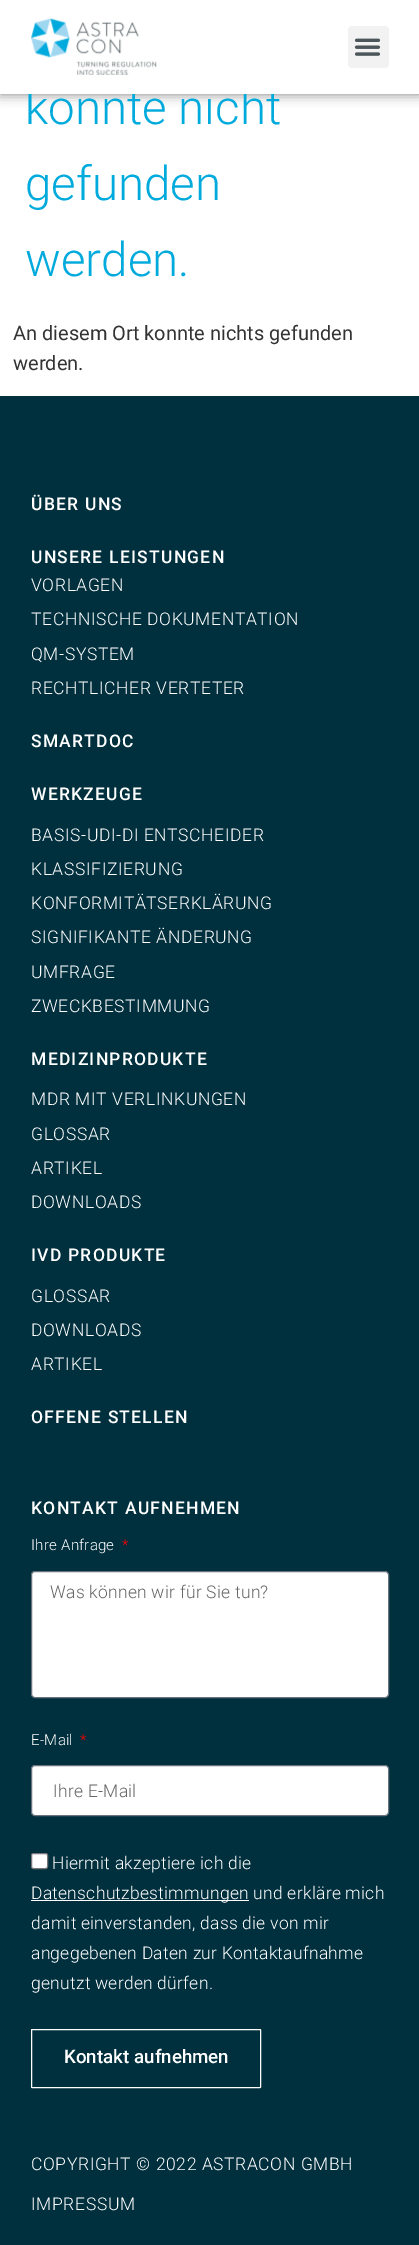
%!PS-Adobe-3.0
%%BoundingBox: 0 0 419 2245
%%LanguageLevel: 3
%%Pages: 1
%%EndComments
%%BeginProlog
/setink { dup -16 bitshift 255 div exch dup -8 bitshift 255 and 255 div exch 255 and 255 div setrgbcolor } def
/usefont { [ exch dup neg 0 0 3 -1 roll 0 0 ] selectfont } def
/setalpha { dup .setfillconstantalpha .setstrokeconstantalpha } def
/rrect { 5 dict begin { /r /h /w /y /x } { exch def } forall
  x r add y moveto x w add y 2 copy h add r arct x w add y h add x 1 index r arct
  x y h add x y r arct x y 2 copy exch w add exch r arct closepath end } def
/softshadow { 12 dict begin { /a /b /q /h /w /y /x } { exch def } forall gsave /was 0 def
  9 -2 -9 { dup b mul 4 div /e exch def 1 sub .425 mul 2.718 exch exp 1 add a .99 .min exch div /now exch def
    1 1 now sub 1 was sub div sub setalpha /was now def
    w h .min e 2 mul add 0 gt { x e sub y e sub w e 2 mul add h e 2 mul add
      q e add b .6 mul add w h .min 2 div e add .min 0 .max rrect fill } if } for grestore end } def
/drawimage { 5 dict begin { /h /w /y /x /name } { exch def } forall
  gsave x y translate w h scale
  w h 8 [w 0 0 h 0 0] name (r) file false 3 colorimage grestore end } def
%%EndProlog
%%BeginSetup
<< /PageSize [419 2245] /PageUsesTransparency true >> setpagedevice
%%EndSetup
%%Page: 1 1
0 .pushpdf14devicefilter
0 2245 translate 1 -1 scale
4 setmiterlimit
16#FFFFFF setink
0 0 419 2245 rectfill
16#000000 setink
0 0 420 94 0 6 0.5 softshadow
/Roboto-Light 47.5 usefont
16#00AADC setink
25 124 moveto (konnte nicht) show
16#FFFFFF setink
0 0 419 94 rectfill
(img1.raw) 31 18 126 57 drawimage
16#F2F2F2 setink
348 26 41 42 4 rrect fill
(img2.raw) 354 38 27 18 drawimage
16#00AADC setink
25 200 moveto (gefunden) show
25 276 moveto (werden.) show
/Roboto-Regular 20 usefont
16#333333 setink
13 340 moveto (An diesem Ort konnte nichts gefunden) show
13 370 moveto (werden.) show
16#002F3D setink
0 396 419 1849 rectfill
/Roboto-Medium 17.5 usefont
16#FFFFFF setink
31 510 moveto 1.25 0 (ÜBER UNS) ashow
31 563 moveto 1.25 0 (UNSERE LEISTUNGEN) ashow
/Roboto-Light 17.5 usefont
31 591 moveto 0.6 0 (VORLAGEN) ashow
31 625 moveto 0.6 0 (TECHNISCHE DOKUMENTATION) ashow
31 660 moveto 0.6 0 (QM-SYSTEM) ashow
31 694 moveto 0.6 0 (RECHTLICHER VERTETER) ashow
/Roboto-Medium 17.5 usefont
31 747 moveto 1.25 0 (SMARTDOC) ashow
31 800 moveto 1.25 0 (WERKZEUGE) ashow
/Roboto-Light 17.5 usefont
31 841 moveto 0.6 0 (BASIS-UDI-DI ENTSCHEIDER) ashow
31 875 moveto 0.6 0 (KLASSIFIZIERUNG) ashow
31 909 moveto 0.6 0 (KONFORMITÄTSERKLÄRUNG) ashow
31 943 moveto 0.6 0 (SIGNIFIKANTE ÄNDERUNG) ashow
31 978 moveto 0.6 0 (UMFRAGE) ashow
31 1012 moveto 0.6 0 (ZWECKBESTIMMUNG) ashow
/Roboto-Medium 17.5 usefont
31 1065 moveto 1.25 0 (MEDIZINPRODUKTE) ashow
/Roboto-Light 17.5 usefont
31 1105 moveto 0.6 0 (MDR MIT VERLINKUNGEN) ashow
31 1140 moveto 0.6 0 (GLOSSAR) ashow
31 1174 moveto 0.6 0 (ARTIKEL) ashow
31 1208 moveto 0.6 0 (DOWNLOADS) ashow
/Roboto-Medium 17.5 usefont
31 1261 moveto 1.25 0 (IVD PRODUKTE) ashow
/Roboto-Light 17.5 usefont
31 1302 moveto 0.6 0 (GLOSSAR) ashow
31 1336 moveto 0.6 0 (DOWNLOADS) ashow
31 1370 moveto 0.6 0 (ARTIKEL) ashow
/Roboto-Medium 17.5 usefont
31 1423 moveto 1.25 0 (OFFENE STELLEN) ashow
31 1514 moveto 1.25 0 (KONTAKT AUFNEHMEN) ashow
/Roboto-Light 15 usefont
31 1550 moveto 0.25 0 (Ihre Anfrage) ashow
16#FF0000 setink
122 1550 moveto 0.25 0 (*) ashow
16#FFFFFF setink
31.5 1571.5 357 126 3.5 rrect gsave fill grestore
16#69727D setink
stroke
/Roboto-Light 17.5 usefont
16#666666 setink
50 1598 moveto 0.25 0 (Was können wir für Sie tun?) ashow
/Roboto-Light 15 usefont
16#FFFFFF setink
31 1745 moveto 0.25 0 (E-Mail) ashow
16#FF0000 setink
80 1745 moveto 0.25 0 (*) ashow
16#FFFFFF setink
31.5 1765.5 357 50 3.5 rrect gsave fill grestore
16#69727D setink
stroke
/Roboto-Light 17.5 usefont
16#666666 setink
53 1797 moveto 0.25 0 (Ihre E-Mail) ashow
16#FFFFFF setink
31.5 1853.5 16 15 2 rrect gsave fill grestore
16#767676 setink
stroke
16#FFFFFF setink
52 1869 moveto 0.25 0 (Hiermit akzeptiere ich die) ashow
31 1900 218 1 rectfill
31 1899 moveto 0.25 0 (Datenschutzbestimmungen und erkläre mich) ashow
31 1929 moveto 0.25 0 (damit einverstanden, dass die von mir) ashow
31 1959 moveto 0.25 0 (angegebenen Daten zur Kontaktaufnahme) ashow
31 1989 moveto 0.25 0 (genutzt werden dürfen.) ashow
31.5 2029.5 229 58 0.5 rrect stroke
/Roboto-Medium 18.75 usefont
64 2063 moveto (Kontakt aufnehmen) show
/Roboto-Light 17.5 usefont
31 2170 moveto 0.6 0 (COPYRIGHT © 2022 ASTRACON GMBH) ashow
31 2210 moveto 0.6 0 (IMPRESSUM) ashow
.poppdf14devicefilter showpage
%%EOF
